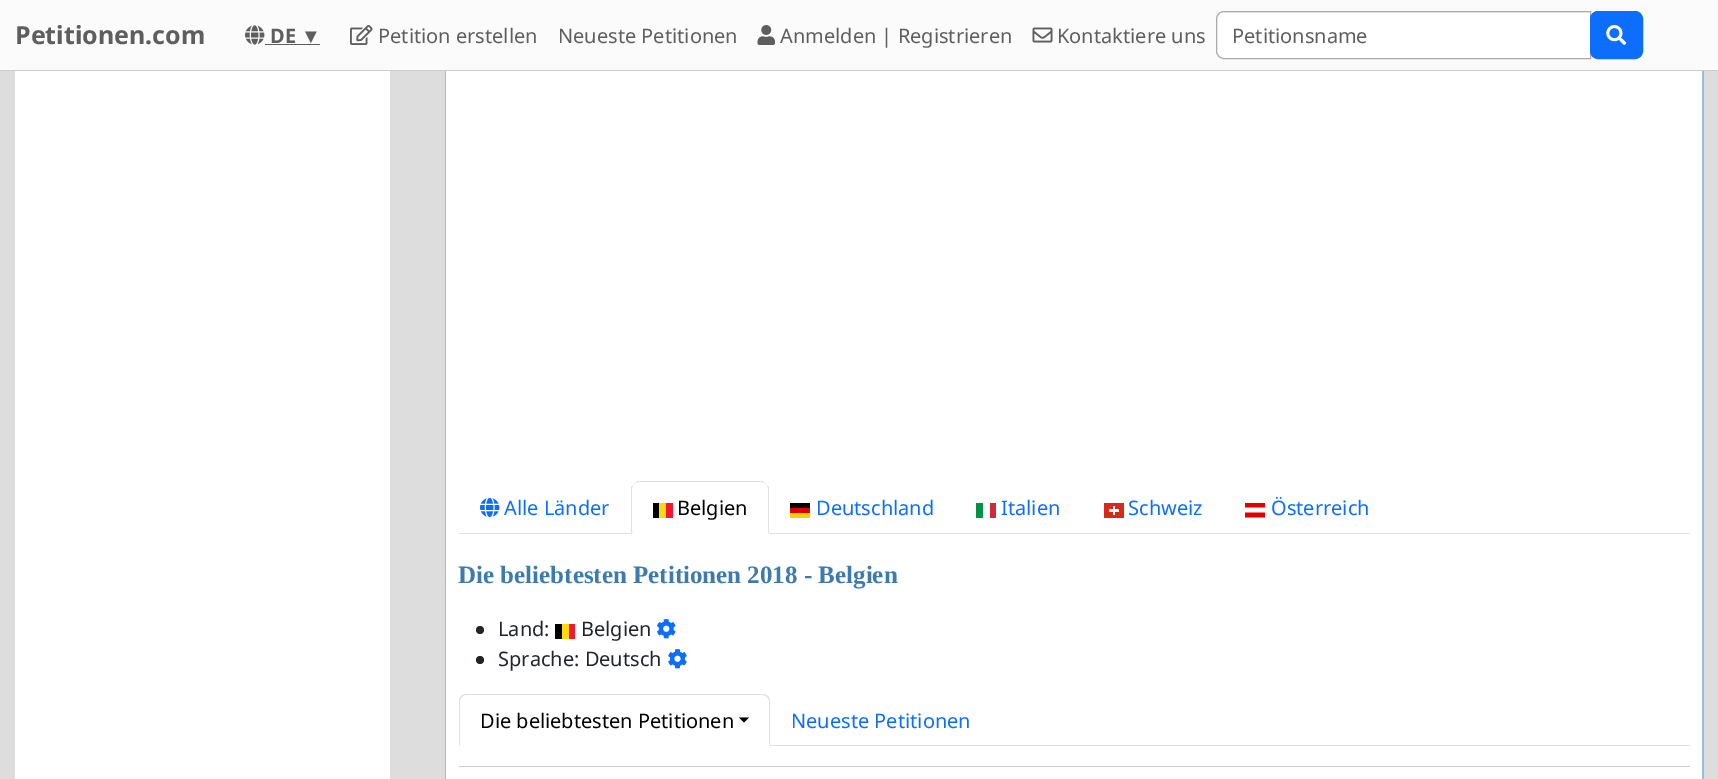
%!PS-Adobe-3.0
%%BoundingBox: 0 0 1718 779
%%LanguageLevel: 3
%%Pages: 1
%%EndComments
%%BeginProlog
/setink { dup -16 bitshift 255 div exch dup -8 bitshift 255 and 255 div exch 255 and 255 div setrgbcolor } def
/usefont { [ exch dup neg 0 0 3 -1 roll 0 0 ] selectfont } def
/disc { newpath 0 360 arc closepath } def
/rrect { 5 dict begin { /r /h /w /y /x } { exch def } forall
  x r add y moveto x w add y 2 copy h add r arct x w add y h add x 1 index r arct
  x y h add x y r arct x y 2 copy exch w add exch r arct closepath end } def
/drawimage { 5 dict begin { /h /w /y /x /name } { exch def } forall
  gsave x y translate w h scale
  w h 8 [w 0 0 h 0 0] name (r) file false 3 colorimage grestore end } def
%%EndProlog
%%BeginSetup
<< /PageSize [1718 779] >> setpagedevice
%%EndSetup
%%Page: 1 1
0 779 translate 1 -1 scale
4 setmiterlimit
16#DDDDDD setink
0 0 1718 779 rectfill
16#FBFBFB setink
0 0 1718 70 rectfill
16#CCCCCC setink
0 70 1718 1 rectfill
/NotoSans-Bold 25 usefont
16#5E5E5E setink
15 44 moveto (Petitionen.com) show
(img1.raw) 245 25 20 20 drawimage
/NotoSans-Bold 20 usefont
270 43 moveto (DE) show
265 44 55 1 rectfill
/LiberationSans-Regular 20 usefont
301 43 moveto (▼) show
(img2.raw) 350 25 23 20 drawimage
/NotoSans-Regular 20 usefont
378 43 moveto (Petition erstellen) show
558 43 moveto (Neueste Petitionen) show
(img3.raw) 757 25 18 20 drawimage
780 43 moveto (Anmelden | Registrieren) show
(img4.raw) 1032 27 21 16 drawimage
1057 43 moveto (Kontaktiere uns) show
16#FFFFFF setink
1224 13 moveto 1590 13 lineto 1590 58 lineto 1224 58 lineto 1220.5 58 1218 55.5 1218 52 curveto 1218 19 lineto 1218 15.5 1220.5 13 1224 13 curveto closepath fill
16#A9A9A9 setink
1224 11.5 moveto 1590.5 11.5 lineto 1590.5 58.5 lineto 1224 58.5 lineto 1220 58.5 1216.5 55 1216.5 51 curveto 1216.5 19 lineto 1216.5 15 1220 11.5 1224 11.5 curveto closepath stroke
16#5E5E5E setink
1232 43 moveto (Petitionsname) show
16#0D6EFD setink
1590.5 11.5 52 47 7.5 rrect gsave fill grestore
stroke
(img5.raw) 1606 25 21 20 drawimage
16#FFFFFF setink
15 71 375 708 rectfill
446 71 1256 708 rectfill
16#95BCE2 setink
445 71 moveto 1704 71 lineto 1704 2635 lineto 1704 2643 1698 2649 1690 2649 curveto 459 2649 lineto 451 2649 445 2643 445 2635 curveto closepath 446 71 moveto 1702 71 lineto 1702 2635 lineto 1702 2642 1697 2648 1690 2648 curveto 459 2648 lineto 452 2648 446 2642 446 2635 curveto closepath eofill
16#DEE2E6 setink
459 533 1231 1 rectfill
(img6.raw) 480 497 20 21 drawimage
16#0D6EFD setink
504 515 moveto (Alle Länder) show
16#FFFFFF setink
639 481 moveto 761 481 lineto 765.5 481 769 484.5 769 489 curveto 769 534 lineto 631 534 lineto 631 489 lineto 631 484.5 634.5 481 639 481 curveto closepath fill
16#DEE2E6 setink
639 482 moveto 637 482 635 483 634 484 curveto 637 481 lineto 763 481 lineto 766 484 lineto 765 483 763 482 761 482 curveto closepath fill
766 484 moveto 769 487 lineto 769 534 lineto 767 532 lineto 768 532 lineto 768 489 lineto 768 487 767 485 766 484 curveto closepath fill
16#FFFFFF setink
769 534 moveto 767 532 lineto 633 532 lineto 631 534 lineto closepath fill
16#DEE2E6 setink
631 534 moveto 631 487 lineto 634 484 lineto 633 485 632 487 632 489 curveto 632 532 lineto 633 532 lineto closepath fill
16#000000 setink
677 515 moveto (Belgien) show
[
    [653 503 6 15 16#000000]
    [659 503 7 15 16#FFD90C]
    [666 503 7 15 16#F31830]
] { aload pop setink rectfill } forall
16#0D6EFD setink
816 515 moveto (Deutschland) show
[
    [790 513 20 5 16#FFCE00]
    [790 503 20 5 16#000000]
    [790 508 20 5 16#DD0000]
] { aload pop setink rectfill } forall
16#0D6EFD setink
1001 515 moveto (Italien) show
16#009246 setink
976 503 7 15 rectfill
16#CE2B37 setink
990 503 6 15 rectfill
16#0D6EFD setink
1128 515 moveto (Schweiz) show
[
    [1104 503 20 15 16#D52B1E]
    [1109 509 10 3 16#FFFFFF]
    [1113 506 2 9 16#FFFFFF]
] { aload pop setink rectfill } forall
(img7.raw) 1245 503 20 15 drawimage
16#0D6EFD setink
1271 515 moveto (Österreich) show
/LiberationSerif-Bold 25 usefont
16#3D7BAE setink
458 583 moveto (Die beliebtesten Petitionen 2018 - Belgien) show
16#212529 setink
480 630 4 disc fill
/NotoSans-Regular 20 usefont
498 636 moveto (Land:) show
[
    [555 624 7 15 16#000000]
    [562 624 7 15 16#FFD90C]
    [569 624 6 15 16#F31830]
] { aload pop setink rectfill } forall
16#212529 setink
581 636 moveto (Belgien) show
(img8.raw) 657 619 19 20 drawimage
480 660 4 disc fill
498 666 moveto (Sprache: Deutsch) show
(img9.raw) 668 649 19 20 drawimage
16#DEE2E6 setink
770 745 920 1 rectfill
466 694 moveto 464 694 462 695 461 696 curveto 462 697 lineto 463 696 464 695 466 695 curveto 762 695 lineto 764 695 766 696 767 697 curveto 768 696 lineto 766 695 764 694 762 694 curveto closepath fill
768 696 moveto 769 697 770 699 770 701 curveto 770 746 lineto 769 745 lineto 769 701 lineto 769 699 768 698 767 697 curveto closepath fill
16#FFFFFF setink
770 746 moveto 459 746 lineto 460 745 lineto 769 745 lineto closepath fill
16#DEE2E6 setink
461 696 moveto 460 697 459 699 459 701 curveto 459 746 lineto 460 745 lineto 460 701 lineto 460 700 461 698 462 697 curveto closepath fill
16#000000 setink
480 728 moveto (Die beliebtesten Petitionen) show
739 717.5 moveto 749 717.5 lineto 744 722.5 lineto closepath fill
16#0D6EFD setink
791 728 moveto (Neueste Petitionen) show
16#CCCCCC setink
459 766 1231 1 rectfill
showpage
%%EOF
